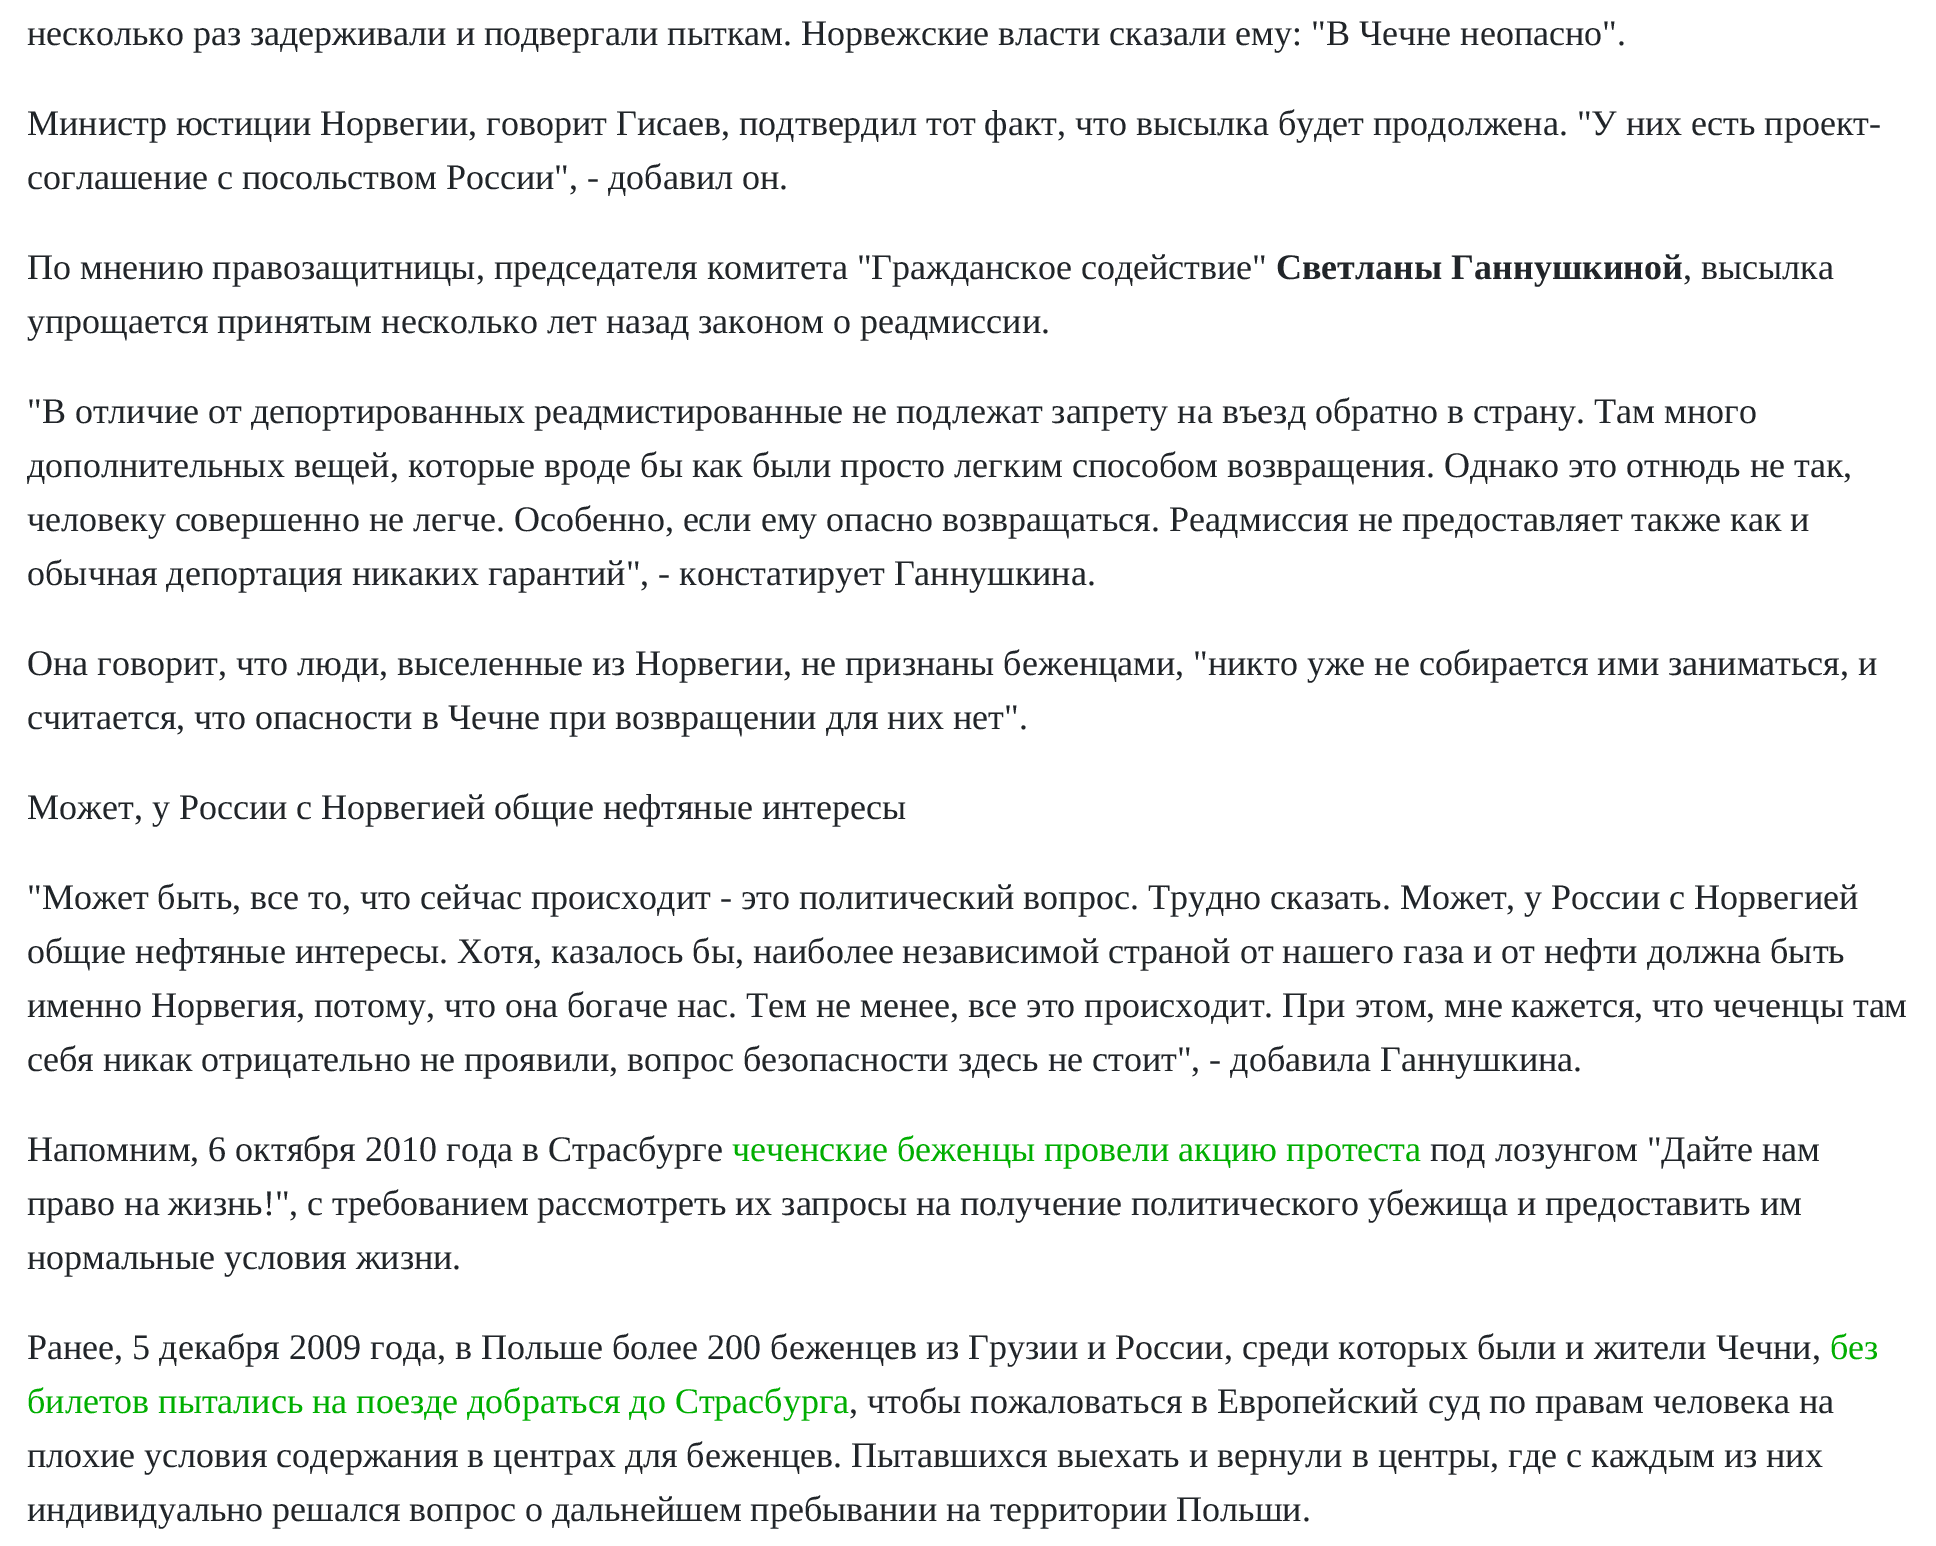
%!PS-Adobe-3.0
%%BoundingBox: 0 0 1936 1546
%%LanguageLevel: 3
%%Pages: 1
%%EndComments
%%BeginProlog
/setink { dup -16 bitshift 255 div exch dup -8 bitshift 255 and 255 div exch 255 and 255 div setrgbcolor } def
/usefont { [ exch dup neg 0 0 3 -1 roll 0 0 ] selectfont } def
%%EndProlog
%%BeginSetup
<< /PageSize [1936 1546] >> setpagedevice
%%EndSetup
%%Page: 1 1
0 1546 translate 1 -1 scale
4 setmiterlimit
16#FFFFFF setink
0 0 1936 1546 rectfill
/LiberationSerif-Regular 36 usefont
16#212529 setink
[
    [(несколько раз задерживали и подвергали пыткам. Норвежские власти сказали ему: "В Чечне неопасно".) 27 45]
    [(Министр юстиции Норвегии, говорит Гисаев, подтвердил тот факт, что высылка будет продолжена. "У них есть проект-) 27 135]
    [(соглашение с посольством России", - добавил он.) 27 189]
    [(По мнению правозащитницы, председателя комитета "Гражданское содействие") 27 279]
] { aload pop moveto show } forall
/LiberationSerif-Bold 36 usefont
1276 279 moveto (Светланы Ганнушкиной) show
/LiberationSerif-Regular 36 usefont
[
    [(, высылка) 1683 279]
    [(упрощается принятым несколько лет назад законом о реадмиссии.) 27 333]
    [("В отличие от депортированных реадмистированные не подлежат запрету на въезд обратно в страну. Там много) 27 423]
    [(дополнительных вещей, которые вроде бы как были просто легким способом возвращения. Однако это отнюдь не так,) 27 477]
    [(человеку совершенно не легче. Особенно, если ему опасно возвращаться. Реадмиссия не предоставляет также как и) 27 531]
    [(обычная депортация никаких гарантий", - констатирует Ганнушкина.) 27 585]
    [(Она говорит, что люди, выселенные из Норвегии, не признаны беженцами, "никто уже не собирается ими заниматься, и) 27 675]
    [(считается, что опасности в Чечне при возвращении для них нет".) 27 729]
    [(Может, у России с Норвегией общие нефтяные интересы) 27 819]
    [("Может быть, все то, что сейчас происходит - это политический вопрос. Трудно сказать. Может, у России с Норвегией) 27 909]
    [(общие нефтяные интересы. Хотя, казалось бы, наиболее независимой страной от нашего газа и от нефти должна быть) 27 963]
    [(именно Норвегия, потому, что она богаче нас. Тем не менее, все это происходит. При этом, мне кажется, что чеченцы там) 27 1017]
    [(себя никак отрицательно не проявили, вопрос безопасности здесь не стоит", - добавила Ганнушкина.) 27 1071]
    [(Напомним, 6 октября 2010 года в Страсбурге) 27 1161]
] { aload pop moveto show } forall
16#00AE00 setink
732 1161 moveto (чеченские беженцы провели акцию протеста) show
16#212529 setink
[
    [(под лозунгом "Дайте нам) 1430 1161]
    [(право на жизнь!", с требованием рассмотреть их запросы на получение политического убежища и предоставить им) 27 1215]
    [(нормальные условия жизни.) 27 1269]
    [(Ранее, 5 декабря 2009 года, в Польше более 200 беженцев из Грузии и России, среди которых были и жители Чечни,) 27 1359]
] { aload pop moveto show } forall
16#00AE00 setink
1830 1359 moveto (без) show
27 1413 moveto (билетов пытались на поезде добраться до Страсбурга) show
16#212529 setink
[
    [(, чтобы пожаловаться в Европейский суд по правам человека на) 849 1413]
    [(плохие условия содержания в центрах для беженцев. Пытавшихся выехать и вернули в центры, где с каждым из них) 27 1467]
    [(индивидуально решался вопрос о дальнейшем пребывании на территории Польши.) 27 1521]
] { aload pop moveto show } forall
showpage
%%EOF
